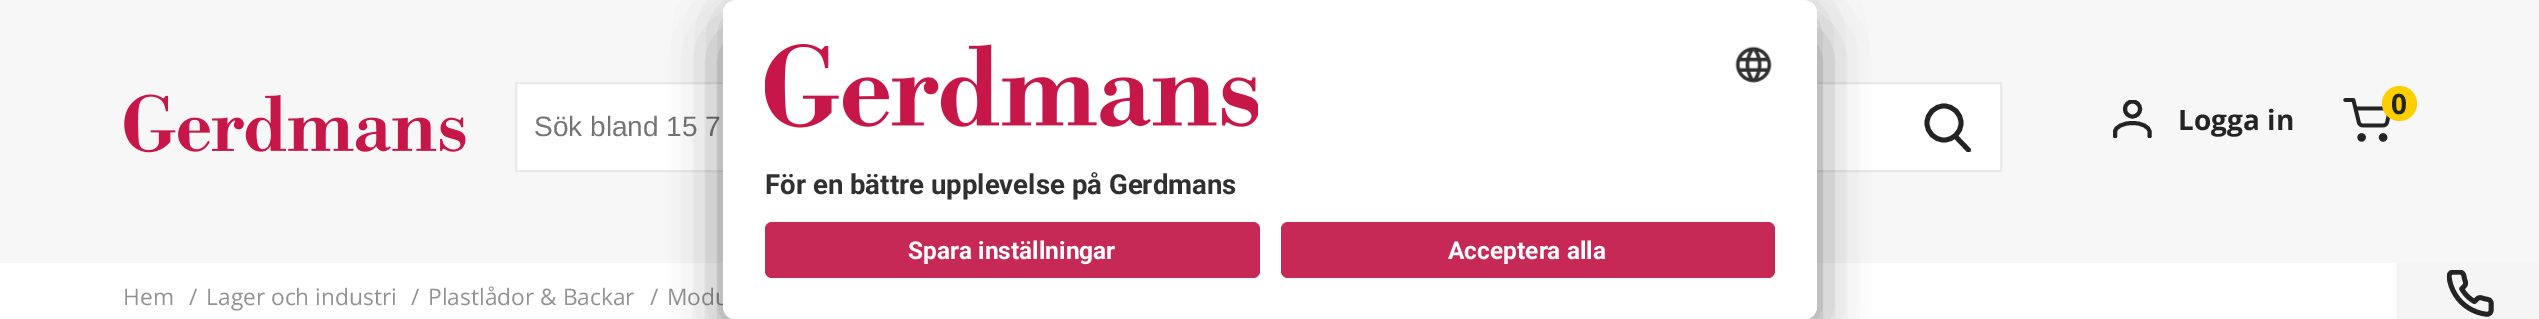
%!PS-Adobe-3.0
%%BoundingBox: 0 0 2539 319
%%LanguageLevel: 3
%%Pages: 1
%%EndComments
%%BeginProlog
/setink { dup -16 bitshift 255 div exch dup -8 bitshift 255 and 255 div exch 255 and 255 div setrgbcolor } def
/usefont { [ exch dup neg 0 0 3 -1 roll 0 0 ] selectfont } def
/setalpha { dup .setfillconstantalpha .setstrokeconstantalpha } def
/disc { newpath 0 360 arc closepath } def
/rrect { 5 dict begin { /r /h /w /y /x } { exch def } forall
  x r add y moveto x w add y 2 copy h add r arct x w add y h add x 1 index r arct
  x y h add x y r arct x y 2 copy exch w add exch r arct closepath end } def
/softshadow { 12 dict begin { /a /b /q /h /w /y /x } { exch def } forall gsave /was 0 def
  9 -2 -9 { dup b mul 4 div /e exch def 1 sub .425 mul 2.718 exch exp 1 add a .99 .min exch div /now exch def
    1 1 now sub 1 was sub div sub setalpha /was now def
    w h .min e 2 mul add 0 gt { x e sub y e sub w e 2 mul add h e 2 mul add
      q e add b .6 mul add w h .min 2 div e add .min 0 .max rrect fill } if } for grestore end } def
/drawimage { 5 dict begin { /h /w /y /x /name } { exch def } forall
  gsave x y translate w h scale
  w h 8 [w 0 0 h 0 0] name (r) file false 3 colorimage grestore end } def
%%EndProlog
%%BeginSetup
<< /PageSize [2539 319] /PageUsesTransparency true >> setpagedevice
%%EndSetup
%%Page: 1 1
0 .pushpdf14devicefilter
0 319 translate 1 -1 scale
4 setmiterlimit
16#FFFFFF setink
0 0 2539 319 rectfill
16#242424 setink
2399 250 140 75 0 2 0.15 softshadow
16#F7F7F7 setink
0 0 2539 263 rectfill
(img1.raw) 124 94 342 59 drawimage
16#FFFFFF setink
516 83 moveto 2001 83 lineto 2001 171 lineto 516 171 lineto closepath gsave fill grestore
16#E9E9E9 setink
2 setlinewidth
stroke
/LiberationSans-Regular 28 usefont
16#757575 setink
534 136 moveto (Sök bland 15 7) show
16#242424 setink
4.8 setlinewidth
1944 123 17 disc stroke
gsave
1923 103 49 49 rectclip
1 setlinecap
1 setlinejoin
1955.5 136.5 moveto 1968.5 150 lineto stroke
grestore
(img2.raw) 2343 98 48 44 drawimage
16#FFCE00 setink
2399.5 103.5 17.5 disc fill
/OpenSans-Bold 28 usefont
16#242424 setink
2391 114 moveto (0) show
gsave
2111 100 43 38 rectclip
3.9 setlinewidth
1 setlinecap
1 setlinejoin
2149.5 136.5 moveto 2149.5 132 lineto 2149.5 127 2142 123 2132.5 123 curveto 2123 123 2115 127 2115 132 curveto 2115 136.5 lineto stroke
0 setlinecap
0 setlinejoin
2132.5 109 7.5 disc stroke
grestore
2178 130 moveto (Logga in) show
/OpenSans-Regular 22.75 usefont
16#929292 setink
[
    [(Hem) 123 305]
    [(/) 189 305]
    [(Lager och industri) 206 305]
    [(/) 411 305]
    [(Plastlådor & Backar) 428 305]
    [(/) 650 305]
    [(Modu) 667 305]
] { aload pop moveto show } forall
16#F5F5F5 setink
2399 263 140 56 rectfill
(img3.raw) 2447 270 47 47 drawimage
16#000000 setink
723 35 1094 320 14 24.5 0.3 softshadow
723 9 1094 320 14 23 0.22 softshadow
16#FFFFFF setink
723 0 1094 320 14 rrect fill
gsave
723 0 1094 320 14 rrect clip newpath
737 0 moveto 1803 0 lineto 1810.5 0 1817 6.5 1817 14 curveto 1817 208 lineto 723 208 lineto 723 14 lineto 723 6.5 729.5 0 737 0 curveto closepath clip newpath
723 2 1094 206 rectfill
grestore
(img4.raw) 765 44 493 84 drawimage
(img5.raw) 1735 46 37 37 drawimage
/Roboto-Bold 27.6 usefont
16#303030 setink
765 194 moveto (För en bättre upplevelse på Gerdmans) show
16#FFFFFF setink
723 208 moveto 1817 208 lineto 1817 306 lineto 1817 313.5 1810.5 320 1803 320 curveto 737 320 lineto 729.5 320 723 313.5 723 306 curveto closepath fill
16#C72956 setink
765 222 495 56 7 rrect fill
/Roboto-Bold 24.5 usefont
16#FFFFFF setink
908 259 moveto (Spara inställningar) show
16#C72956 setink
1281 222 494 56 7 rrect fill
16#FFFFFF setink
1448 259 moveto (Acceptera alla) show
.poppdf14devicefilter showpage
%%EOF
